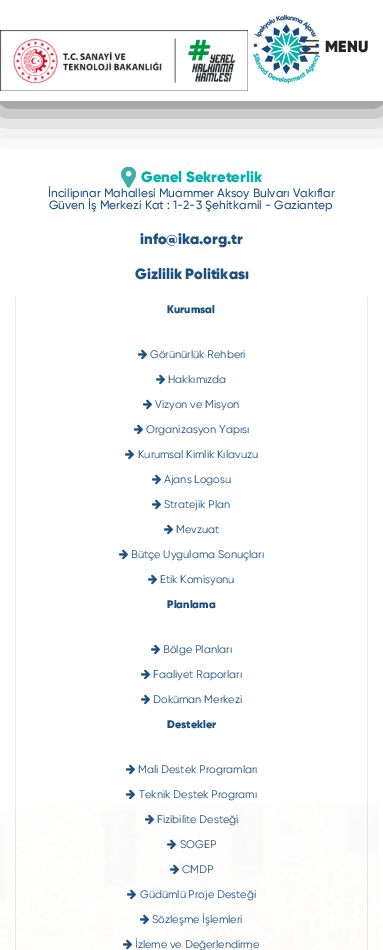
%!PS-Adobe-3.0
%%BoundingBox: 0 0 383 950
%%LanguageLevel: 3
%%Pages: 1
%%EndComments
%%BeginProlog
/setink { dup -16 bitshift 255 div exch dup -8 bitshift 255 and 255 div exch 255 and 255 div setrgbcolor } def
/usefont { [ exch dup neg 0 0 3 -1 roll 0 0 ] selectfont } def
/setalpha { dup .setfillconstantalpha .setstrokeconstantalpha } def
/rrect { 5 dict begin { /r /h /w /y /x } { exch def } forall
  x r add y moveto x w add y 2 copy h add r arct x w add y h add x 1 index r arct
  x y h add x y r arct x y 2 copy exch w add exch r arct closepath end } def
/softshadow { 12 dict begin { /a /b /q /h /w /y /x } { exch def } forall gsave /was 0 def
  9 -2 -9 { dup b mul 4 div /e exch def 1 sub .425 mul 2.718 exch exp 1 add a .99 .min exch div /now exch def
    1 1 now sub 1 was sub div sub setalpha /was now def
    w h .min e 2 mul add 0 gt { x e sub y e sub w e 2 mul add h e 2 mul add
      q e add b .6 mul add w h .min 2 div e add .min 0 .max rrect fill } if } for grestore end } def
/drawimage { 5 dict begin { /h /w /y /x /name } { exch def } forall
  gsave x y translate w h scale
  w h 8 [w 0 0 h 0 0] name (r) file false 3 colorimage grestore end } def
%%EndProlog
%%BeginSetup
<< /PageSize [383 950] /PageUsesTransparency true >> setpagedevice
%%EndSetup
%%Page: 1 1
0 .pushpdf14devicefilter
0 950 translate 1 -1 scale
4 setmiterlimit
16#FFFFFF setink
0 0 383 950 rectfill
16#000000 setink
0 3 383 101 0 20 0.67 softshadow
16#FFFFFF setink
0 0 383 101 rectfill
(img1.raw) 0 30 248 61 drawimage
(img3.raw) 298 39 22 15 drawimage
(img2.raw) 253 15 67 69 drawimage
/Gilroy-Black 16 usefont
16#242424 setink
325 52 moveto (MENU) show
(img4.raw) 0 802 379 148 drawimage
/Gilroy-Medium 12 usefont
16#1E5081 setink
48 197 moveto (İncilipınar Mahallesi Muammer Aksoy Bulvarı Vakıflar) show
(img5.raw) 121 167 15 21 drawimage
/Gilroy-Black 15 usefont
16#07AFAD setink
141 182 moveto (Genel Sekreterlik) show
/Gilroy-Medium 12 usefont
16#1E5081 setink
49 209 moveto (Güven İş Merkezi Kat : 1-2-3 Şehitkamil - Gaziantep) show
/Gilroy-Black 15 usefont
140 244 moveto (info@ika.org.tr) show
135 279 moveto (Gizlilik Politikası) show
0.57 setalpha
16#D8D8D8 setink
367 297 1 653 rectfill
15 297 1 653 rectfill
/Gilroy-Black 11 usefont
1 setalpha
16#1E5081 setink
167 313 moveto (Kurumsal) show
(img6.raw) 138 349 9 11 drawimage
/Gilroy-Regular 11 usefont
150 358 moveto (Görünürlük Rehberi) show
(img6.raw) 156 374 9 11 drawimage
168 383 moveto (Hakkımızda) show
(img6.raw) 143 399 9 11 drawimage
155 408 moveto (Vizyon ve Misyon) show
(img6.raw) 134 424 9 11 drawimage
146 433 moveto (Organizasyon Yapısı) show
(img6.raw) 125 449 9 11 drawimage
138 458 moveto (Kurumsal Kimlik Kılavuzu) show
(img6.raw) 152 474 9 11 drawimage
164 483 moveto (Ajans Logosu) show
(img6.raw) 152 499 9 11 drawimage
164 508 moveto (Stratejik Plan) show
(img6.raw) 164 524 9 11 drawimage
176 533 moveto (Mevzuat) show
(img6.raw) 119 549 9 11 drawimage
131 558 moveto (Bütçe Uygulama Sonuçları) show
(img6.raw) 148 574 9 11 drawimage
160 583 moveto (Etik Komisyonu) show
/Gilroy-Black 11 usefont
167 608 moveto (Planlama) show
(img6.raw) 151 644 9 11 drawimage
/Gilroy-Regular 11 usefont
163 653 moveto (Bölge Planları) show
(img6.raw) 141 669 9 11 drawimage
153 678 moveto (Faaliyet Raporları) show
(img6.raw) 141 694 9 11 drawimage
153 703 moveto (Doküman Merkezi) show
/Gilroy-Black 11 usefont
167 728 moveto (Destekler) show
(img7.raw) 126 764 9 11 drawimage
/Gilroy-Regular 11 usefont
138 773 moveto (Mali Destek Programları) show
(img8.raw) 126 789 9 11 drawimage
139 798 moveto (Teknik Destek Programı) show
(img9.raw) 145 814 9 11 drawimage
157 823 moveto (Fizibilite Desteği) show
(img10.raw) 167 839 9 11 drawimage
180 848 moveto (SOGEP) show
(img11.raw) 170 864 9 11 drawimage
182 873 moveto (CMDP) show
(img12.raw) 127 889 9 11 drawimage
140 898 moveto (Güdümlü Proje Desteği) show
(img13.raw) 140 914 9 11 drawimage
152 923 moveto (Sözleşme İşlemleri) show
(img14.raw) 123 939 9 11 drawimage
135 948 moveto (İzleme ve Değerlendirme) show
.poppdf14devicefilter showpage
%%EOF
